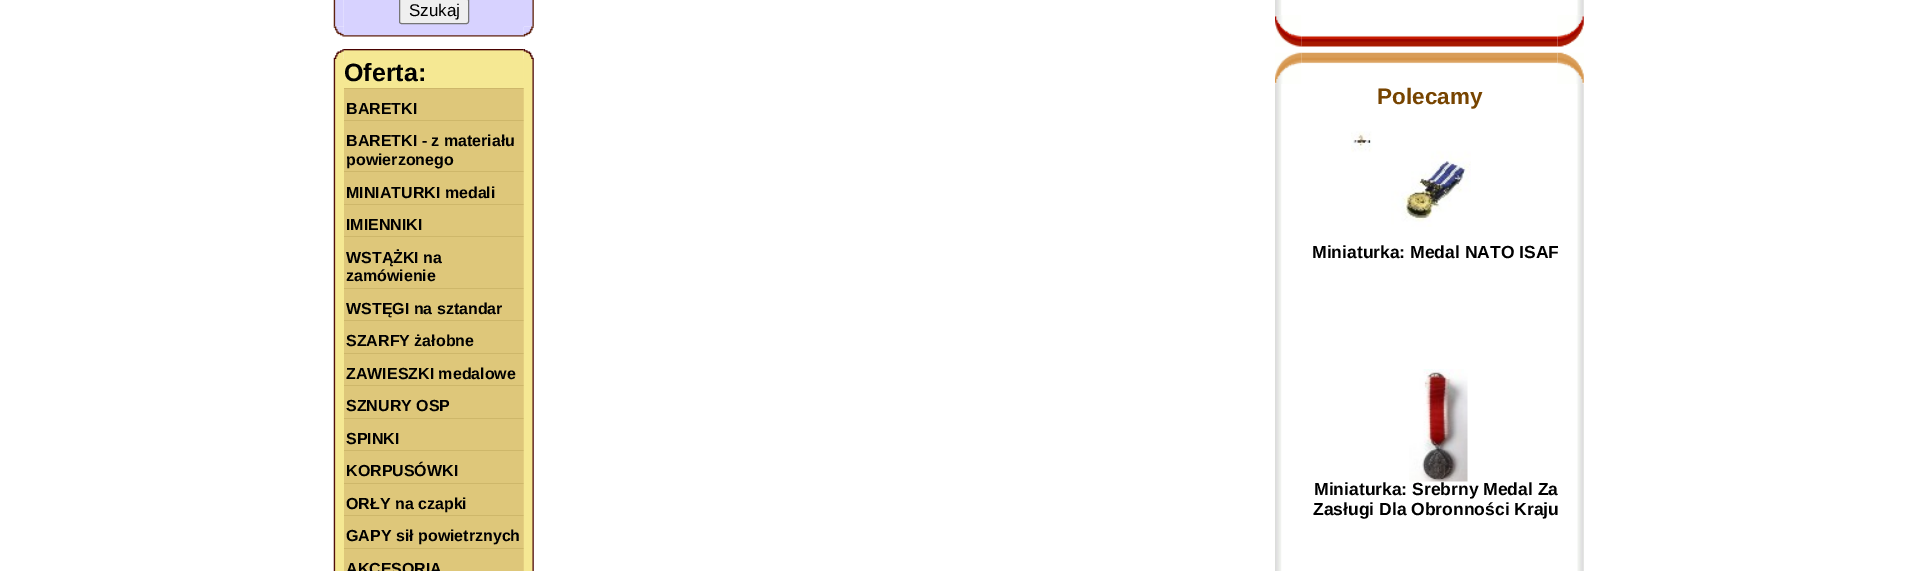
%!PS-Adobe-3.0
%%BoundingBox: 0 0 1917 571
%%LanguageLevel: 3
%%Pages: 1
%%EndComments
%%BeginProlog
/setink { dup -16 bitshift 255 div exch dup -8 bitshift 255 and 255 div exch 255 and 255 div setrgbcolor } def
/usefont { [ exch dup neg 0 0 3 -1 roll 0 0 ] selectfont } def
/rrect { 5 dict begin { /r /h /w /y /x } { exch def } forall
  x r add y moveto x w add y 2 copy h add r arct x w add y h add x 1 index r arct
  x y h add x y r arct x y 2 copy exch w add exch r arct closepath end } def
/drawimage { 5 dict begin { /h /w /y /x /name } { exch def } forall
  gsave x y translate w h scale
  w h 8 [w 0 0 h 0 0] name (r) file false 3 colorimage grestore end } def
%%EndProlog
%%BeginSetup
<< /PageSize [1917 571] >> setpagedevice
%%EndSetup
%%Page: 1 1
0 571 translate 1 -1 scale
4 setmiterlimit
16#FFFFFF setink
0 0 1917 571 rectfill
(img1.raw) 333 0 11 27 drawimage
16#D7D2FF setink
344 0 180 27 rectfill
16#EFEFEF setink
399.5 -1.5 69 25 2 rrect gsave fill grestore
16#767676 setink
stroke
/LiberationSans-Regular 17 usefont
16#000000 setink
409 16 moveto (Szukaj) show
(img2.raw) 524 0 10 27 drawimage
(img3.raw) 333 26 11 11 drawimage
(img4.raw) 343 27 181 10 drawimage
(img5.raw) 523 26 11 11 drawimage
(img6.raw) 333 49 11 10 drawimage
(img7.raw) 343 49 181 10 drawimage
(img8.raw) 523 49 11 10 drawimage
(img9.raw) 333 59 10 512 drawimage
16#F5E893 setink
343 59 181 512 rectfill
/LiberationSans-Bold 25 usefont
16#000000 setink
344 81 moveto (Oferta:) show
16#DEC77A setink
344 89 180 31 rectfill
16#CEB76A setink
344 88 185 1 rectfill
/LiberationSans-Bold 16 usefont
16#000000 setink
346 114 moveto (BARETKI) show
16#DEC77A setink
344 121 180 50 rectfill
16#CEB76A setink
344 120 185 1 rectfill
16#000000 setink
346 146 moveto (BARETKI - z materiału) show
346 165 moveto (powierzonego) show
16#DEC77A setink
344 172 180 32 rectfill
16#CEB76A setink
344 171 185 1 rectfill
16#000000 setink
346 198 moveto (MINIATURKI medali) show
16#DEC77A setink
344 205 180 31 rectfill
16#CEB76A setink
344 204 185 1 rectfill
16#000000 setink
346 230 moveto (IMIENNIKI) show
16#DEC77A setink
344 237 180 51 rectfill
16#CEB76A setink
344 236 185 1 rectfill
16#000000 setink
346 263 moveto (WSTĄŻKI na) show
346 281 moveto (zamówienie) show
16#DEC77A setink
344 289 180 31 rectfill
16#CEB76A setink
344 288 185 1 rectfill
16#000000 setink
346 314 moveto (WSTĘGI na sztandar) show
16#DEC77A setink
344 321 180 32 rectfill
16#CEB76A setink
344 320 185 1 rectfill
16#000000 setink
346 346 moveto (SZARFY żałobne) show
16#DEC77A setink
344 354 180 31 rectfill
16#CEB76A setink
344 353 185 1 rectfill
16#000000 setink
346 379 moveto (ZAWIESZKI medalowe) show
16#DEC77A setink
344 386 180 32 rectfill
16#CEB76A setink
344 385 185 1 rectfill
16#000000 setink
346 411 moveto (SZNURY OSP) show
16#DEC77A setink
344 419 180 31 rectfill
16#CEB76A setink
344 418 185 1 rectfill
16#000000 setink
346 444 moveto (SPINKI) show
16#DEC77A setink
344 451 180 32 rectfill
16#CEB76A setink
344 450 185 1 rectfill
16#000000 setink
346 476 moveto (KORPUSÓWKI) show
16#DEC77A setink
344 484 180 31 rectfill
16#CEB76A setink
344 483 185 1 rectfill
16#000000 setink
346 509 moveto (ORŁY na czapki) show
16#DEC77A setink
344 516 180 32 rectfill
16#CEB76A setink
344 515 185 1 rectfill
16#000000 setink
346 541 moveto (GAPY sił powietrznych) show
16#DEC77A setink
344 549 180 22 rectfill
16#CEB76A setink
344 548 185 1 rectfill
16#000000 setink
346 574 moveto (AKCESORIA) show
(img10.raw) 523 59 11 512 drawimage
(img11.raw) 1275 0 7 16 drawimage
(img12.raw) 1577 0 7 16 drawimage
(img13.raw) 1275 15 27 32 drawimage
(img14.raw) 1301 35 257 12 drawimage
(img15.raw) 1557 15 27 32 drawimage
(img16.raw) 1275 52 27 32 drawimage
(img17.raw) 1301 52 257 12 drawimage
(img18.raw) 1557 52 27 32 drawimage
(img19.raw) 1275 84 7 487 drawimage
/LiberationSans-Bold 22.5 usefont
16#774400 setink
1377 104 moveto (Polecamy) show
(img20.raw) 1351 131 120 96 drawimage
/LiberationSans-Bold 17.5 usefont
16#000000 setink
1312 258 moveto (Miniaturka: Medal NATO ISAF) show
(img21.raw) 1409 369 59 113 drawimage
1314 495 moveto (Miniaturka: Srebrny Medal Za) show
1313 515 moveto (Zasługi Dla Obronności Kraju) show
(img22.raw) 1577 84 7 487 drawimage
showpage
%%EOF
